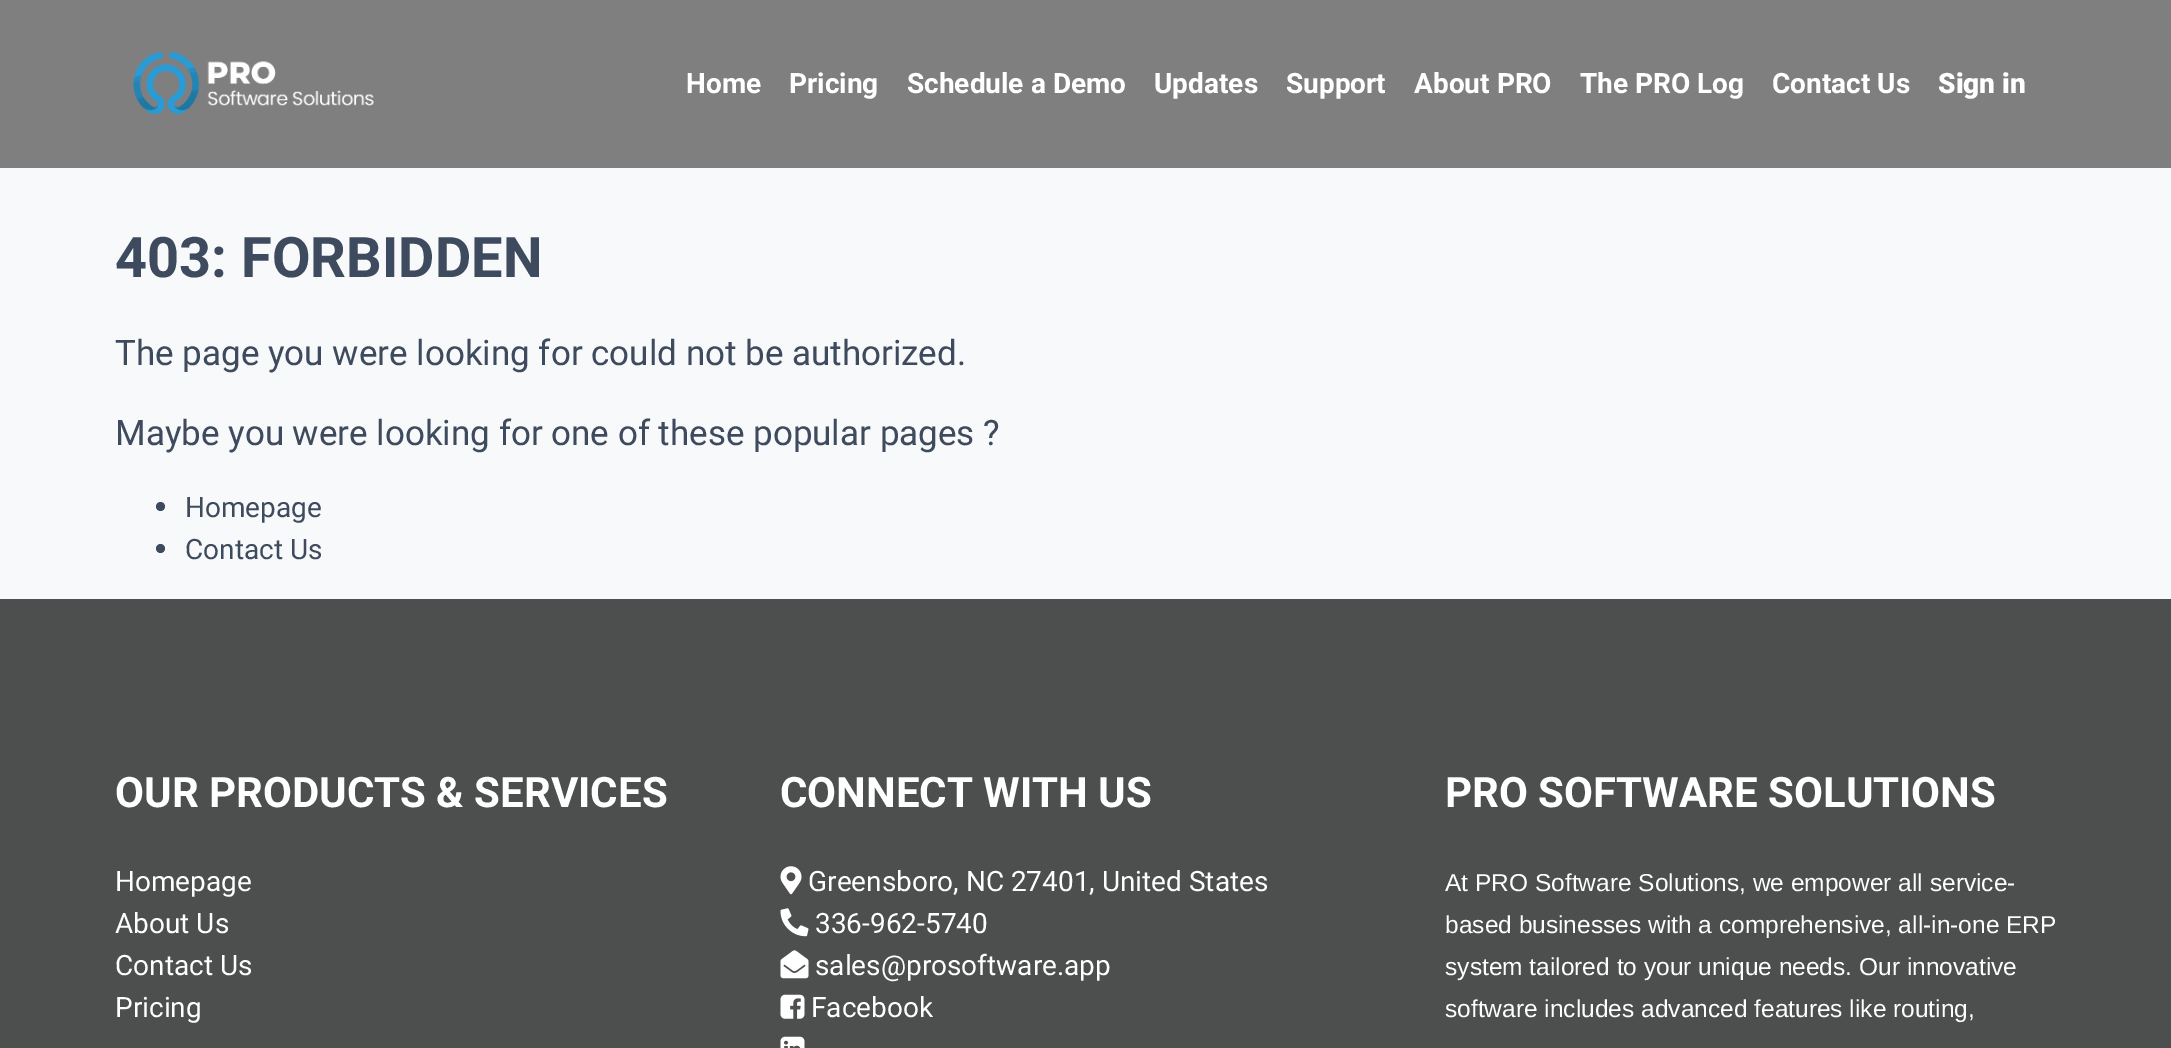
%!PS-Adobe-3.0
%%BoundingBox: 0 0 2171 1048
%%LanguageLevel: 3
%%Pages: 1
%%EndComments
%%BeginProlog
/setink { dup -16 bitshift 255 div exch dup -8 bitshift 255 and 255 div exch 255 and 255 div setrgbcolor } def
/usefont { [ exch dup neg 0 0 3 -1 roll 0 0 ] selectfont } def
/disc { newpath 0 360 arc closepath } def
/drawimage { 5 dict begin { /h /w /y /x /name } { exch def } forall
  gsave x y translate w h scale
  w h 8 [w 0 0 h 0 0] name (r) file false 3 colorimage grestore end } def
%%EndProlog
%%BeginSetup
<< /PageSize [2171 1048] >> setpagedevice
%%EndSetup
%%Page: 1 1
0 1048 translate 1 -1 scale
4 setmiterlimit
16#F8F9FA setink
0 0 2171 1048 rectfill
16#7F7F7F setink
0 0 2171 168 rectfill
(img1.raw) 133 51 241 64 drawimage
/Roboto-Bold 28 usefont
16#FFFFFF setink
[
    [(Home) 686 93]
    [(Pricing) 789 93]
    [(Schedule a Demo) 907 93]
    [(Updates) 1154 93]
    [(Support) 1286 93]
    [(About PRO) 1414 93]
    [(The PRO Log) 1580 93]
    [(Contact Us) 1772 93]
] { aload pop moveto show } forall
/Roboto-Black 28 usefont
1938 93 moveto (Sign in) show
/Roboto-Bold 56 usefont
16#3E4A5D setink
115 277 moveto (403: FORBIDDEN) show
/Roboto-Regular 35 usefont
115 365 moveto (The page you were looking for could not be authorized.) show
115 445 moveto (Maybe you were looking for one of these popular pages ?) show
160.5 506.5 4.5 disc fill
/Roboto-Regular 28 usefont
185 517 moveto (Homepage) show
160.5 548.5 4.5 disc fill
185 559 moveto (Contact Us) show
16#4D4E4E setink
0 599 2171 449 rectfill
/Roboto-Bold 42 usefont
16#FFFFFF setink
115 807 moveto (OUR PRODUCTS & SERVICES) show
/Roboto-Regular 28 usefont
[
    [(Homepage) 115 891]
    [(About Us) 115 933]
    [(Contact Us) 115 975]
    [(Pricing) 115 1017]
] { aload pop moveto show } forall
/Roboto-Bold 42 usefont
780 807 moveto (CONNECT WITH US) show
(img2.raw) 780 866 22 29 drawimage
/Roboto-Regular 28 usefont
808 891 moveto (Greensboro, NC 27401, United States) show
(img3.raw) 780 908 29 29 drawimage
815 933 moveto (336-962-5740) show
(img4.raw) 780 950 29 29 drawimage
815 975 moveto (sales@prosoftware.app) show
(img5.raw) 780 994 25 25 drawimage
811 1017 moveto (Facebook) show
(img6.raw) 780 1036 25 12 drawimage
/Roboto-Bold 42 usefont
1445 807 moveto (PRO SOFTWARE SOLUTIONS) show
/LiberationSans-Regular 24.5 usefont
[
    [(At PRO Software Solutions, we empower all service-) 1445 891]
    [(based businesses with a comprehensive, all-in-one ERP) 1445 933]
    [(system tailored to your unique needs. Our innovative) 1445 975]
    [(software includes advanced features like routing,) 1445 1017]
] { aload pop moveto show } forall
showpage
%%EOF
